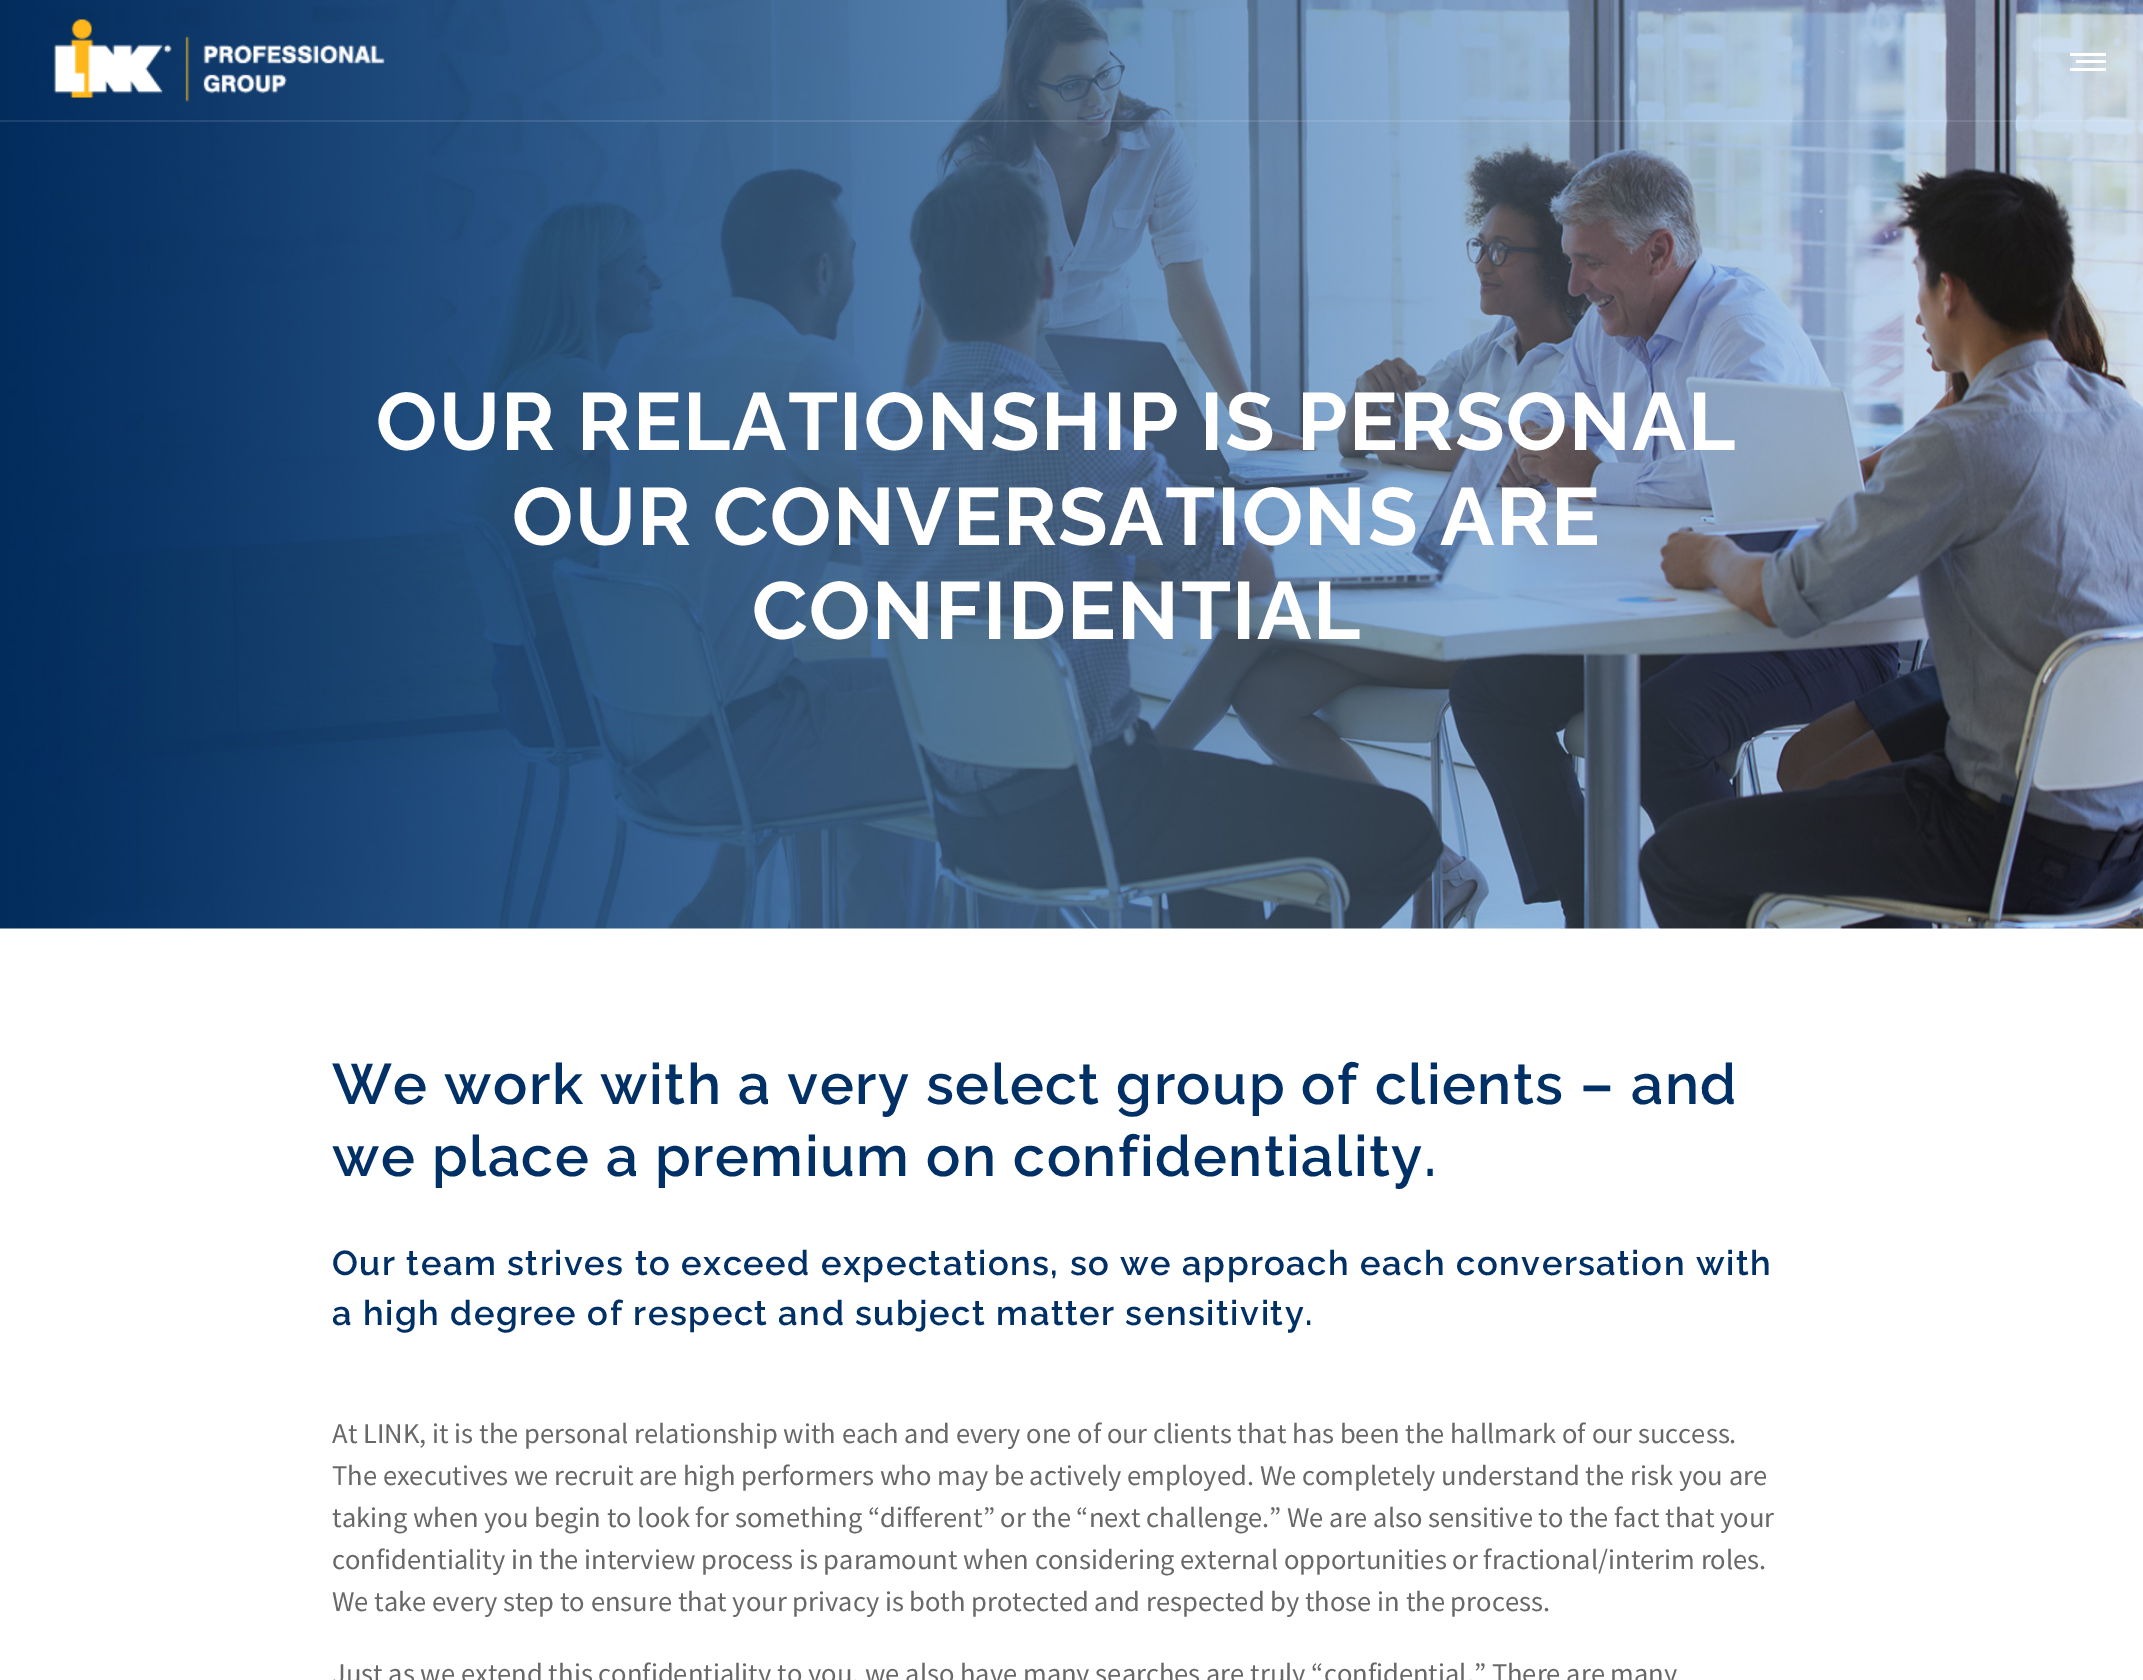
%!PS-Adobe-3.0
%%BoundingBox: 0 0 2143 1680
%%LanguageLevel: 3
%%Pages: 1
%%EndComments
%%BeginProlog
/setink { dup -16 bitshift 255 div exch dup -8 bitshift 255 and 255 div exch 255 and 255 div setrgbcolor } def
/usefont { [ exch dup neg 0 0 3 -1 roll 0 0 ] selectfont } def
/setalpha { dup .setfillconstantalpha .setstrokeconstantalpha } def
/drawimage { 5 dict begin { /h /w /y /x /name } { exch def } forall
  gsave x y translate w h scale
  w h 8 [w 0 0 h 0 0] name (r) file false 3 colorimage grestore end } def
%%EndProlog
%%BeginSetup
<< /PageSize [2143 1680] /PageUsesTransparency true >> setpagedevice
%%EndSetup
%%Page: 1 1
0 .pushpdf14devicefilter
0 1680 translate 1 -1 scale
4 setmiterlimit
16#FFFFFF setink
0 0 2143 1680 rectfill
(img2.raw) 0 0 2143 929 drawimage
0.1 setalpha
0 120 2143 2 rectfill
1 setalpha
(img1.raw) 53 19 332 84 drawimage
0.1 setalpha
[
    [2039 0 2 120 16#FFFFFF]
] { aload pop setink rectfill } forall
1 setalpha
[
    [2070 53 36 3 16#FFFFFF]
    [2076 60 30 3 16#FFFFFF]
    [2070 68 36 3 16#FFFFFF]
] { aload pop setink rectfill } forall
/Raleway-Bold 81 usefont
376 450 moveto 1.5 0 (OUR RELATIONSHIP IS PERSONAL) ashow
512 545 moveto 1.5 0 (OUR CONVERSATIONS ARE) ashow
752 639 moveto 1.5 0 (CONFIDENTIAL) ashow
/Raleway-SemiBold 57 usefont
16#003066 setink
332 1104 moveto 1.5 0 (We work with a very select group of clients – and) ashow
332 1176 moveto 1.5 0 (we place a premium on confidentiality.) ashow
/Raleway-SemiBold 34.5 usefont
332 1275 moveto 1.5 0 (Our team strives to exceed expectations, so we approach each conversation with) ashow
332 1325 moveto 1.5 0 (a high degree of respect and subject matter sensitivity.) ashow
/SourceSansPro-Regular 28.5 usefont
16#686868 setink
[
    [(At LINK, it is the personal relationship with each and every one of our clients that has been the hallmark of our success.) 332 1443]
    [(The executives we recruit are high performers who may be actively employed. We completely understand the risk you are) 332 1485]
    [(taking when you begin to look for something “different” or the “next challenge.” We are also sensitive to the fact that your) 332 1527]
    [(confidentiality in the interview process is paramount when considering external opportunities or fractional/interim roles.) 332 1569]
    [(We take every step to ensure that your privacy is both protected and respected by those in the process.) 332 1611]
    [(Just as we extend this confidentiality to you, we also have many searches are truly “confidential.” There are many) 332 1683]
] { aload pop moveto show } forall
.poppdf14devicefilter showpage
%%EOF
